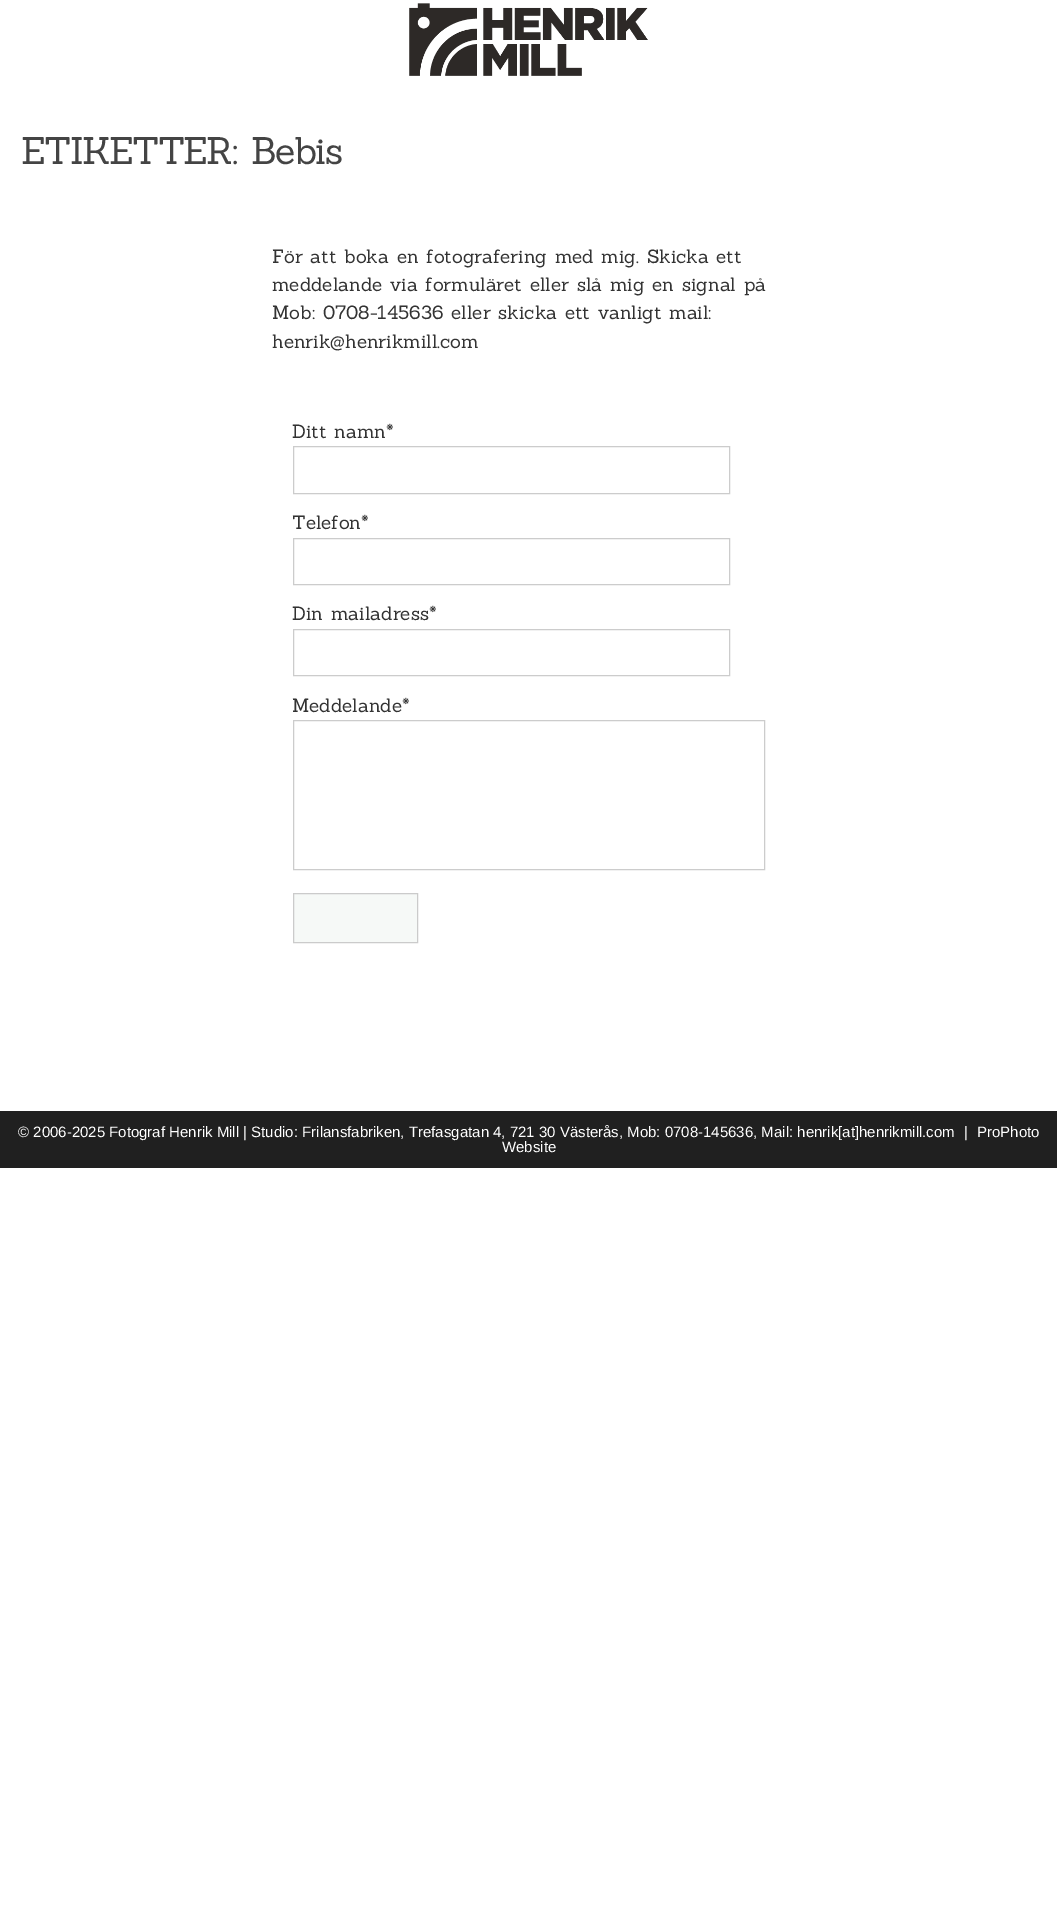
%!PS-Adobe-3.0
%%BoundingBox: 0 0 1057 1906
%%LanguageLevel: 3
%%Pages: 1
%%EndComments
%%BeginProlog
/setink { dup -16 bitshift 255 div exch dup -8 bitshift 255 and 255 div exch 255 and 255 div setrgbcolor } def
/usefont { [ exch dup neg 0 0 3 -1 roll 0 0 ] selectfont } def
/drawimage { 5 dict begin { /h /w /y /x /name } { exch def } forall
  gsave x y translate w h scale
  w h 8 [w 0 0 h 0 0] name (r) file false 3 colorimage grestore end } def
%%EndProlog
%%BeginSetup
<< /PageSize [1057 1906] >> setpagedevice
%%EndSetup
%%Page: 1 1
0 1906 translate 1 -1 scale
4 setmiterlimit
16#FFFFFF setink
0 0 1057 1906 rectfill
(img1.raw) 409 3 239 73 drawimage
/Sanchez-Regular 37.5 usefont
16#444444 setink
21 164 moveto -1.5 0 (ETIKETTER:) ashow
251 164 moveto -1.5 0 (Bebis) ashow
/Sanchez-Regular 18.75 usefont
16#333333 setink
272 263 moveto 2 0 32 (För att boka en fotografering med mig. Skicka ett) widthshow
272 291 moveto 2 0 32 (meddelande via formuläret eller slå mig en signal på) widthshow
272 319 moveto 2 0 32 (Mob: 0708-145636 eller skicka ett vanligt mail:) widthshow
272 348 moveto (henrik@henrikmill.com) show
292 438 moveto 2 0 32 (Ditt namn) widthshow
386 438 moveto (*) show
16#CCCCCC setink
293.5 446.5 436 47 rectstroke
16#333333 setink
292 529 moveto (Telefon*) show
16#CCCCCC setink
293.5 538.5 436 46 rectstroke
16#333333 setink
292 620 moveto 2 0 32 (Din mailadress) widthshow
429 620 moveto (*) show
16#CCCCCC setink
293.5 629.5 436 46 rectstroke
16#333333 setink
292 712 moveto (Meddelande*) show
16#CCCCCC setink
293.5 720.5 471 149 rectstroke
16#F6F9F7 setink
293.5 893.5 moveto 417.5 893.5 lineto 417.5 942.5 lineto 293.5 942.5 lineto closepath gsave fill grestore
16#CBCBCB setink
stroke
16#202020 setink
0 1111 1057 57 rectfill
/LiberationSans-Regular 15 usefont
16#FFFFFF setink
[
    [(© 2006-2025 Fotograf Henrik Mill | Studio: Frilansfabriken, Trefasgatan 4, 721 30 Västerås, Mob: 0708-145636, Mail: henrik[at]henrikmill.com) 18 1137]
    [(|) 964 1137]
    [(ProPhoto) 977 1137]
    [(Website) 502 1152]
] { aload pop moveto show } forall
showpage
%%EOF
